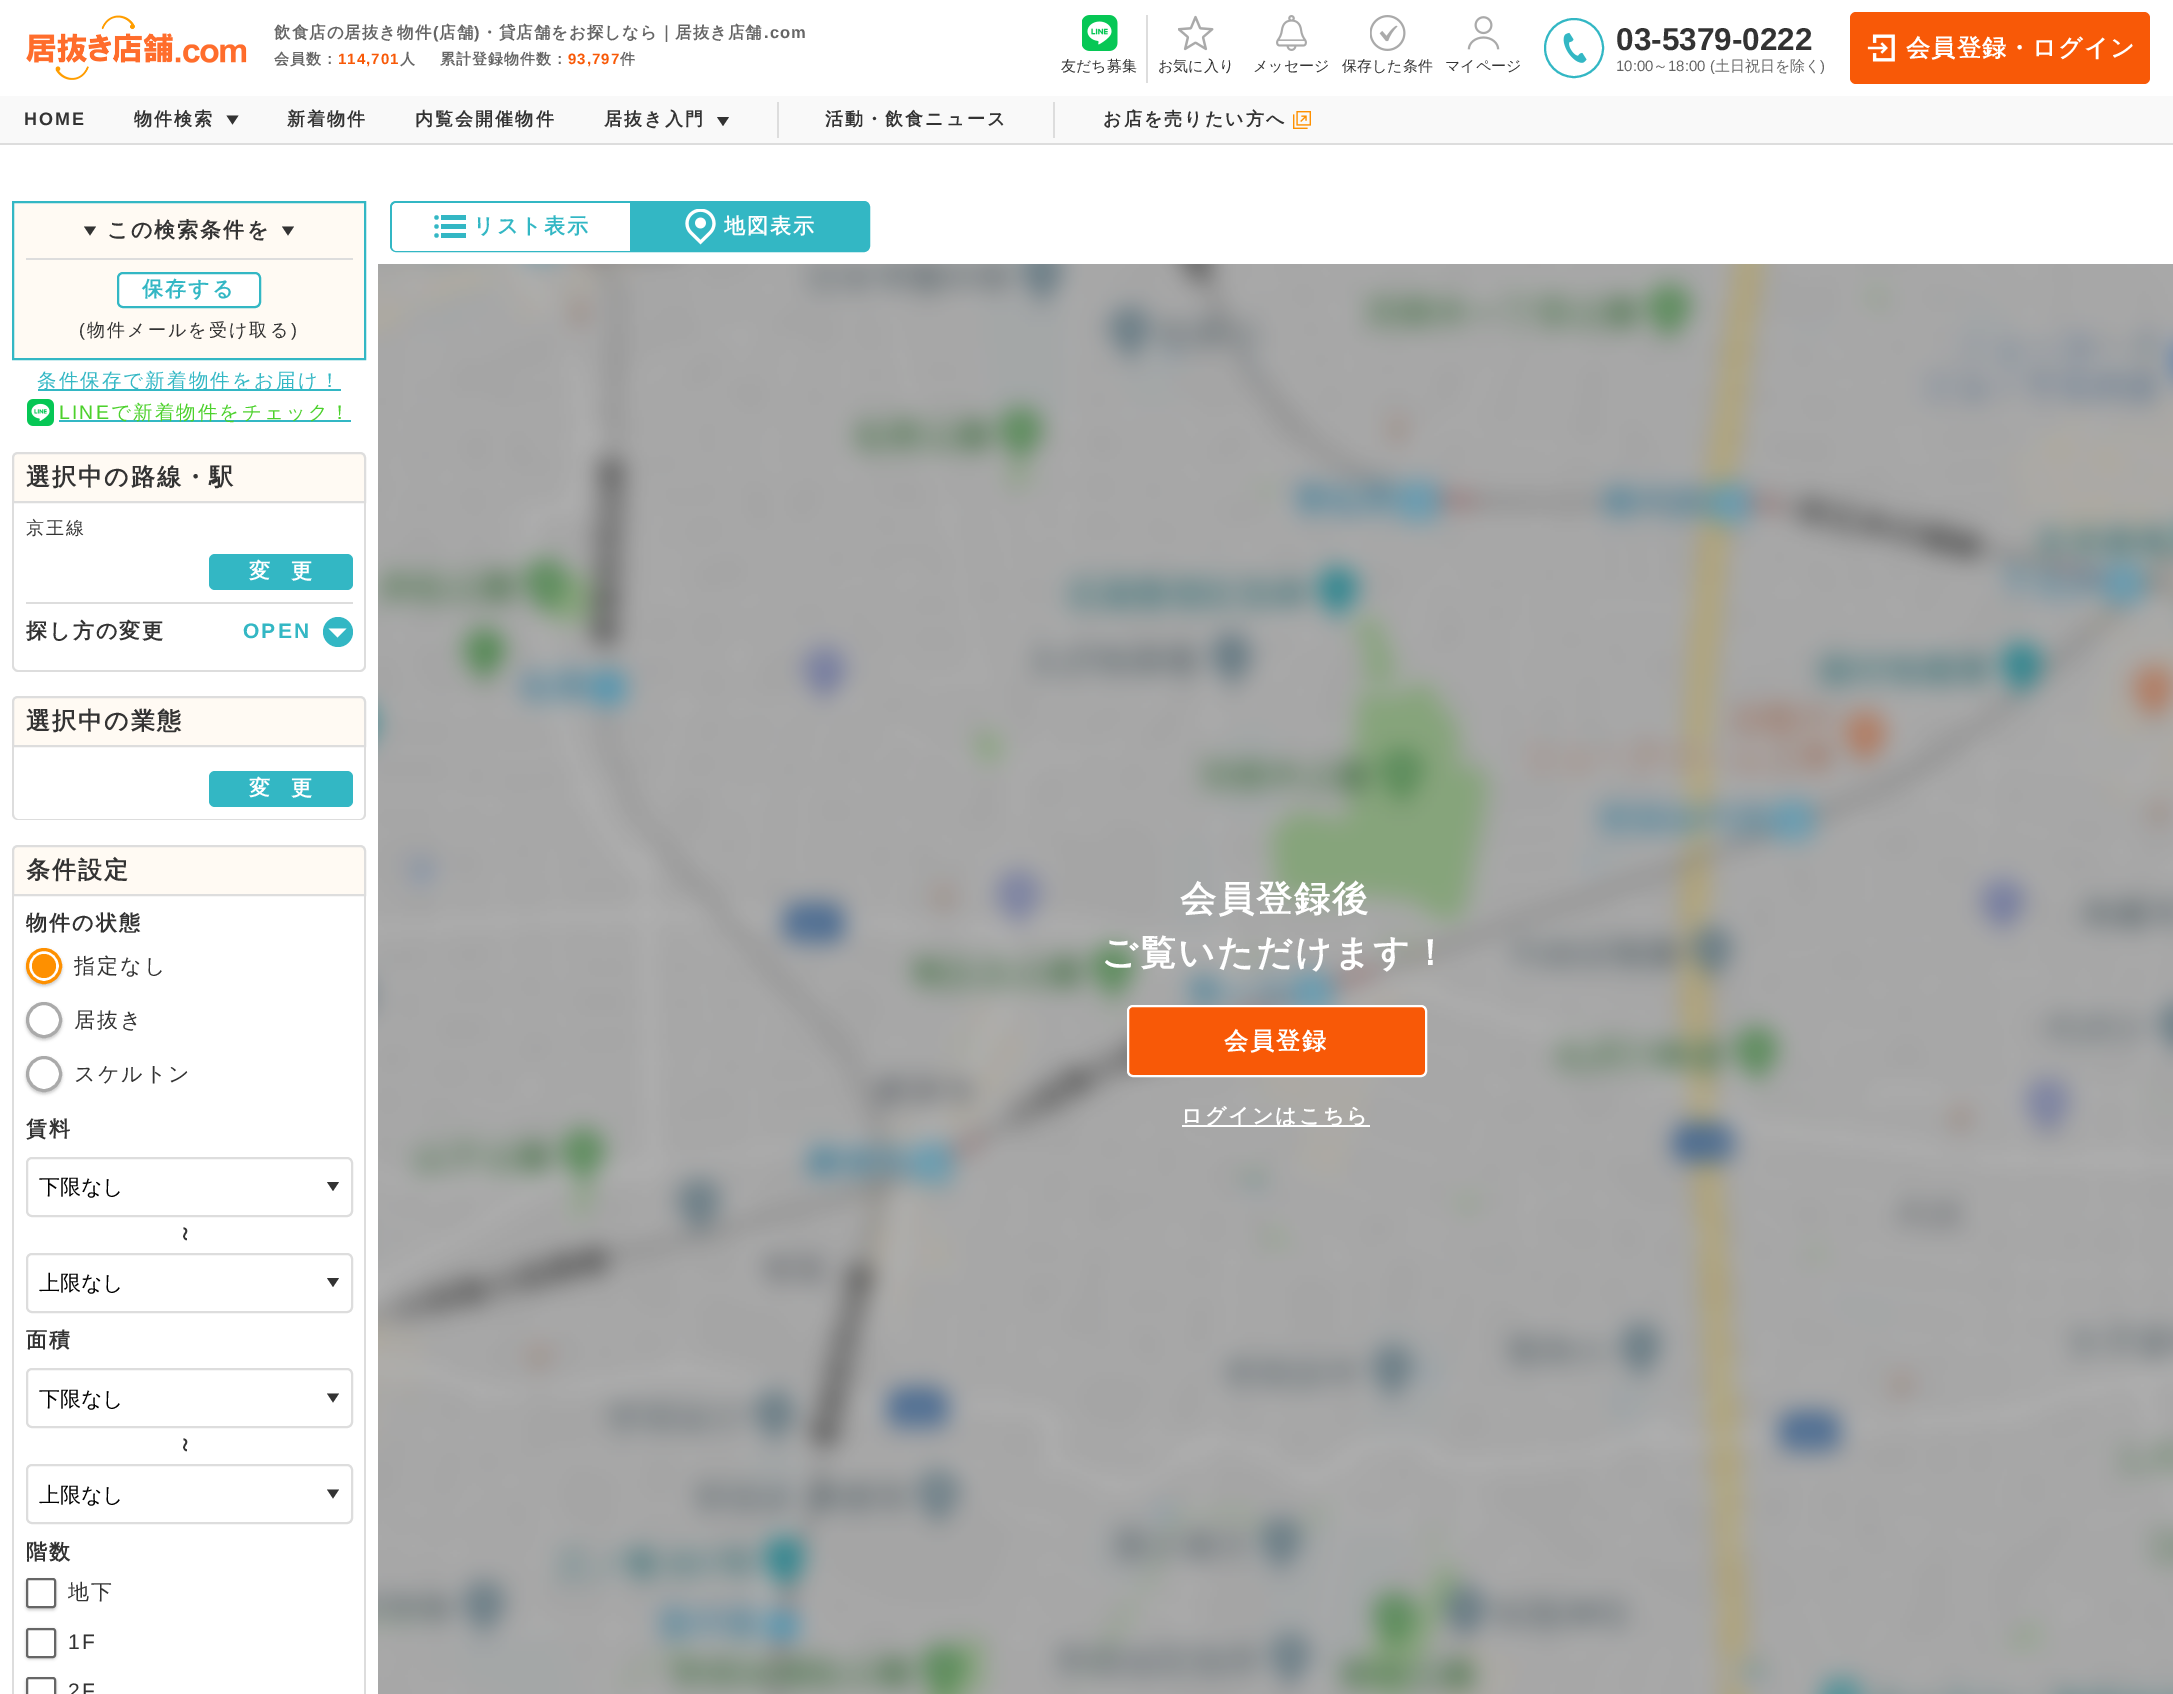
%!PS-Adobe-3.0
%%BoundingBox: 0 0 2173 1694
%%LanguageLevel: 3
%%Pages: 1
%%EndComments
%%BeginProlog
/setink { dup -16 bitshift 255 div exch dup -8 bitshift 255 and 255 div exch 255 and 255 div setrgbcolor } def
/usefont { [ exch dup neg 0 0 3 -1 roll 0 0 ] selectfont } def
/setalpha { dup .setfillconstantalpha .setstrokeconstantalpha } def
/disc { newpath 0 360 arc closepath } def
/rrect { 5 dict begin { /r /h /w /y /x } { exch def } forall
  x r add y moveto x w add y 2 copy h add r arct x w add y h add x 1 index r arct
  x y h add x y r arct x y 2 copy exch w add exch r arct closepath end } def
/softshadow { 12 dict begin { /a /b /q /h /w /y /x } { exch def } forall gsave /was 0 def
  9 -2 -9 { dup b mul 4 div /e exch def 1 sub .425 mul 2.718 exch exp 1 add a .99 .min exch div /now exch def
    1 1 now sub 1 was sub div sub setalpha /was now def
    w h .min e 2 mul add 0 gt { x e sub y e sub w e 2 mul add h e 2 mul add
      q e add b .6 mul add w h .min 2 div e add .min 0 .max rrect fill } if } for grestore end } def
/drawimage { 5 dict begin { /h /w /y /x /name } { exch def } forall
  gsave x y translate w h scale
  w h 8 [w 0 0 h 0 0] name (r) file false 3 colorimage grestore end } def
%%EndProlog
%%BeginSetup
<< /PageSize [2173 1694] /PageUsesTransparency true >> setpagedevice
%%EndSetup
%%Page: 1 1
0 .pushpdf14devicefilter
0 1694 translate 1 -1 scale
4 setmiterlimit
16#FFFFFF setink
0 0 2173 1694 rectfill
(img1.raw) 26 15 221 65 drawimage
/WenQuanYiZenHei-Bold 16.5 usefont
16#666666 setink
274 38 moveto 1 0 (飲食店の居抜き物件) ashow
/LiberationSans-Bold 16.5 usefont
433 38 moveto 1 0 (\() ashow
/WenQuanYiZenHei-Bold 16.5 usefont
439 38 moveto 1 0 (店舗) ashow
/LiberationSans-Bold 16.5 usefont
474 38 moveto 1 0 (\)) ashow
/WenQuanYiZenHei-Bold 16.5 usefont
481 38 moveto 1 0 (・貸店舗をお探しなら｜居抜き店舗) ashow
/LiberationSans-Bold 16.5 usefont
764 38 moveto 1 0 (.com) ashow
/WenQuanYiZenHei-Bold 15 usefont
274 64 moveto 1 0 (会員数：) ashow
/LiberationSans-Bold 15 usefont
16#F85907 setink
338 64 moveto 1 0 (114,701) ashow
/WenQuanYiZenHei-Bold 15 usefont
16#666666 setink
400 64 moveto 1 0 (人) ashow
440 64 moveto 1 0 (累計登録物件数：) ashow
/LiberationSans-Bold 15 usefont
16#F85907 setink
568 64 moveto 1 0 (93,797) ashow
/WenQuanYiZenHei-Bold 15 usefont
16#666666 setink
620 64 moveto 1 0 (件) ashow
16#33B7C4 setink
2 setlinewidth
1574 48 29 disc stroke
(img2.raw) 1563 32 24 31 drawimage
/LiberationSans-Bold 31.5 usefont
16#333333 setink
1616 50 moveto (03-5379-0222) show
/LiberationSans-Regular 15 usefont
16#666666 setink
1616 71 moveto (10:00) show
/WenQuanYiZenHei-Medium 15 usefont
1653 71 moveto (～) show
/LiberationSans-Regular 15 usefont
1668 71 moveto (18:00 \() show
/WenQuanYiZenHei-Medium 15 usefont
1715 71 moveto (土日祝日を除く) show
/LiberationSans-Regular 15 usefont
1820 71 moveto (\)) show
16#F85907 setink
1850 12 300 72 6 rrect fill
(img3.raw) 1867 34 28 28 drawimage
/WenQuanYiZenHei-Bold 24 usefont
16#FFFFFF setink
1906 56 moveto 1.25 0 (会員登録・ログイン) ashow
16#DDDDDD setink
1146 15 2 68 rectfill
(img4.raw) 1082 15 36 36 drawimage
/WenQuanYiZenHei-Medium 15 usefont
16#333333 setink
1061 71 moveto (友だち募集) show
(img5.raw) 1178 15 36 36 drawimage
1158 71 moveto (お気に入り) show
(img6.raw) 1276 15 31 36 drawimage
1253 71 moveto (メッセージ) show
(img7.raw) 1370 15 36 36 drawimage
1342 71 moveto (保存した条件) show
(img8.raw) 1467 16 33 34 drawimage
1445 71 moveto (マイページ) show
16#F9F9F9 setink
0 96 2173 47 rectfill
16#DDDDDD setink
0 143 2173 2 rectfill
/LiberationSans-Bold 18 usefont
16#333333 setink
24 125 moveto 2.1 0 (HOME) ashow
/WenQuanYiZenHei-Bold 18 usefont
134 125 moveto 2.1 0 (物件検索) ashow
226.5 115.5 moveto 238.5 115.5 lineto 232.5 124.5 lineto closepath fill
287 125 moveto 2.1 0 (新着物件) ashow
415 125 moveto 2.1 0 (内覧会開催物件) ashow
604 125 moveto 2.1 0 (居抜き入門) ashow
717 117 moveto 729 117 lineto 723 126 lineto closepath fill
16#DDDDDD setink
777 102 2 36 rectfill
16#333333 setink
825 125 moveto 2.1 0 (活動・飲食ニュース) ashow
16#DDDDDD setink
1053 102 2 36 rectfill
16#333333 setink
1103 125 moveto 2.1 0 (お店を売りたい方へ) ashow
(img9.raw) 1293 111 18 18 drawimage
16#FFFAF3 setink
13 202 moveto 365 202 lineto 365 359 lineto 13 359 lineto closepath gsave fill grestore
16#33B7C4 setink
stroke
16#DDDDDD setink
26 258 327 2 rectfill
16#333333 setink
84 226.5 moveto 96 226.5 lineto 90 235.5 lineto closepath fill
/WenQuanYiZenHei-Bold 21 usefont
107 237 moveto 2.1 0 (この検索条件を) ashow
282 226.5 moveto 294 226.5 lineto 288 235.5 lineto closepath fill
16#FFFFFF setink
118 273 142 34 5 rrect gsave fill grestore
16#33B7C4 setink
stroke
142 296 moveto 2.1 0 (保存する) ashow
/LiberationSans-Regular 18 usefont
16#333333 setink
79 336 moveto 2.1 0 (\() ashow
/WenQuanYiZenHei-Medium 18 usefont
87 336 moveto 2.1 0 (物件メールを受け取る) ashow
/LiberationSans-Regular 18 usefont
291 336 moveto 2.1 0 (\)) ashow
16#33B7C4 setink
38 389 303 2 rectfill
/WenQuanYiZenHei-Medium 19.5 usefont
37 387 moveto 2.1 0 (条件保存で新着物件をお届け！) ashow
(img10.raw) 27 399 27 27 drawimage
/LiberationSans-Regular 19.5 usefont
16#4CD12C setink
59 419 moveto 2.1 0 (LINE) ashow
16#33B7C4 setink
59 420 292 2 rectfill
/WenQuanYiZenHei-Medium 19.5 usefont
16#4CD12C setink
111 419 moveto 2.1 0 (で新着物件をチェック！) ashow
16#FFFAF3 setink
18 453 moveto 360 453 lineto 363 453 365 455 365 458 curveto 365 502 lineto 13 502 lineto 13 458 lineto 13 455 15 453 18 453 curveto closepath gsave fill grestore
16#DDDDDD setink
stroke
/WenQuanYiZenHei-Bold 24 usefont
16#333333 setink
26 485 moveto 2.1 0 (選択中の路線・駅) ashow
16#DDDDDD setink
12 502 moveto 366 502 lineto 366 666 lineto 366 669 363 672 360 672 curveto 18 672 lineto 15 672 12 669 12 666 curveto closepath 14 502 moveto 364 502 lineto 364 666 lineto 364 668 362 670 360 670 curveto 18 670 lineto 16 670 14 668 14 666 curveto closepath eofill
/WenQuanYiZenHei-Medium 18 usefont
16#333333 setink
26 534 moveto 2.1 0 (京王線) ashow
16#33B7C4 setink
209 554 144 36 6 rrect fill
/WenQuanYiZenHei-Bold 21 usefont
16#FFFFFF setink
249 578 moveto (変　更) show
16#DDDDDD setink
26 602 327 2 rectfill
16#333333 setink
26 638 moveto 2.1 0 (探し方の変更) ashow
/LiberationSans-Bold 21 usefont
16#33B7C4 setink
243 638 moveto 2.1 0 (OPEN) ashow
338 632 15 disc fill
16#FFFFFF setink
328.5 628.5 moveto 346.5 628.5 lineto 337.5 637.5 lineto closepath fill
16#FFFAF3 setink
18 697 moveto 360 697 lineto 363 697 365 699 365 702 curveto 365 746 lineto 13 746 lineto 13 702 lineto 13 699 15 697 18 697 curveto closepath gsave fill grestore
16#DDDDDD setink
stroke
/WenQuanYiZenHei-Bold 24 usefont
16#333333 setink
26 729 moveto 2.1 0 (選択中の業態) ashow
16#DDDDDD setink
12 747 moveto 366 747 lineto 366 814 lineto 366 818 363 820 360 820 curveto 18 820 lineto 15 820 12 818 12 814 curveto closepath 14 747 moveto 364 747 lineto 364 814 lineto 364 817 362 819 360 819 curveto 18 819 lineto 16 819 14 817 14 814 curveto closepath eofill
16#33B7C4 setink
209 771 144 36 6 rrect fill
/WenQuanYiZenHei-Bold 21 usefont
16#FFFFFF setink
249 795 moveto (変　更) show
16#FFFAF3 setink
18 846 moveto 360 846 lineto 363 846 365 848 365 851 curveto 365 895 lineto 13 895 lineto 13 851 lineto 13 848 15 846 18 846 curveto closepath gsave fill grestore
16#DDDDDD setink
stroke
/WenQuanYiZenHei-Bold 24 usefont
16#333333 setink
26 878 moveto 2.1 0 (条件設定) ashow
16#DDDDDD setink
12 896 moveto 366 896 lineto 366 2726 lineto 366 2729 363 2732 360 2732 curveto 18 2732 lineto 15 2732 12 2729 12 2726 curveto closepath 14 896 moveto 364 896 lineto 364 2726 lineto 364 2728 362 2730 360 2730 curveto 18 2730 lineto 16 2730 14 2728 14 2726 curveto closepath eofill
/WenQuanYiZenHei-Bold 21 usefont
16#333333 setink
26 930 moveto 2.1 0 (物件の状態) ashow
16#000000 setink
26 950 36 36 18 1.5 0.2 softshadow
16#FFFFFF setink
44 966 16.5 disc gsave fill grestore
16#FE9000 setink
3 setlinewidth
stroke
44 966 12 disc fill
/WenQuanYiZenHei-Medium 21 usefont
16#333333 setink
74 973 moveto 2.1 0 (指定なし) ashow
16#000000 setink
26 1004 36 36 18 1.5 0.2 softshadow
16#FFFFFF setink
44 1020 16.5 disc gsave fill grestore
16#AAAAAA setink
stroke
16#333333 setink
74 1027 moveto 2.1 0 (居抜き) ashow
16#000000 setink
26 1058 36 36 18 1.5 0.2 softshadow
16#FFFFFF setink
44 1074 16.5 disc gsave fill grestore
16#AAAAAA setink
stroke
16#333333 setink
74 1081 moveto 2.1 0 (スケルトン) ashow
/WenQuanYiZenHei-Bold 21 usefont
26 1136 moveto 2.1 0 (賃料) ashow
16#DDDDDD setink
2 setlinewidth
27 1158 325 58 5 rrect stroke
/WenQuanYiZenHei-Medium 21 usefont
16#000000 setink
39 1194 moveto (下限なし) show
16#333333 setink
327 1182 moveto 339 1182 lineto 333 1191 lineto closepath fill
/WenQuanYiZenHei-Bold 21 usefont
gsave 179 1223 translate 90 rotate 0 0 moveto 2.1 0 (～) ashow grestore
16#DDDDDD setink
27 1254 325 58 5 rrect stroke
/WenQuanYiZenHei-Medium 21 usefont
16#000000 setink
39 1290 moveto (上限なし) show
16#333333 setink
327 1278 moveto 339 1278 lineto 333 1287 lineto closepath fill
/WenQuanYiZenHei-Bold 21 usefont
26 1347 moveto 2.1 0 (面積) ashow
16#DDDDDD setink
27 1369 325 58 5 rrect stroke
/WenQuanYiZenHei-Medium 21 usefont
16#000000 setink
39 1406 moveto (下限なし) show
16#333333 setink
327 1393.5 moveto 339 1393.5 lineto 333 1402.5 lineto closepath fill
/WenQuanYiZenHei-Bold 21 usefont
gsave 179 1434 translate 90 rotate 0 0 moveto 2.1 0 (～) ashow grestore
16#DDDDDD setink
27 1465 325 58 5 rrect stroke
/WenQuanYiZenHei-Medium 21 usefont
16#000000 setink
39 1502 moveto (上限なし) show
16#333333 setink
327 1489.5 moveto 339 1489.5 lineto 333 1498.5 lineto closepath fill
/WenQuanYiZenHei-Bold 21 usefont
26 1559 moveto 2.1 0 (階数) ashow
16#000000 setink
26 1580 30 30 3 1.5 0.2 softshadow
16#FFFFFF setink
27 1579 28 28 2 rrect gsave fill grestore
16#666666 setink
stroke
/WenQuanYiZenHei-Medium 21 usefont
16#333333 setink
68 1599 moveto 2.1 0 (地下) ashow
16#000000 setink
26 1629 30 30 3 1.5 0.2 softshadow
16#FFFFFF setink
27 1629 28 28 2 rrect gsave fill grestore
16#666666 setink
stroke
/LiberationSans-Regular 21 usefont
16#333333 setink
68 1649 moveto 2.1 0 (1F) ashow
16#000000 setink
26 1679 30 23 3 1.5 0.2 softshadow
16#FFFFFF setink
27 1678 28 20 2 rrect gsave fill grestore
16#666666 setink
stroke
16#333333 setink
68 1698 moveto 2.1 0 (2F) ashow
16#33B7C4 setink
391 202 478 49 5 rrect stroke
16#FFFFFF setink
397 203 moveto 630 203 lineto 630 251 lineto 397 251 lineto 394 251 392 249 392 246 curveto 392 208 lineto 392 205 394 203 397 203 curveto closepath fill
16#33B7C4 setink
436.5 217.5 2.2 disc fill
441 215 25 5 rectfill
436.5 226.5 2.2 disc fill
441 224 25 5 rectfill
436.5 235.5 2.2 disc fill
441 233 25 5 rectfill
/WenQuanYiZenHei-Bold 21 usefont
473 233 moveto 2.1 0 (リスト表示) ashow
630 203 moveto 864 203 lineto 867 203 869 205 869 208 curveto 869 246 lineto 869 249 867 251 864 251 curveto 630 251 lineto closepath fill
(img11.raw) 685 209 31 36 drawimage
16#FFFFFF setink
724 233 moveto 2.1 0 (地図表示) ashow
(img12.raw) 378 264 1795 1430 drawimage
/WenQuanYiZenHei-Bold 36 usefont
1180 911 moveto 2.1 0 (会員登録後) ashow
1101 965 moveto 2.1 0 (ご覧いただけます！) ashow
16#F85907 setink
1128 1006 298 70 5 rrect gsave fill grestore
16#FFFFFF setink
stroke
/WenQuanYiZenHei-Bold 24 usefont
1224 1049 moveto 2.1 0 (会員登録) ashow
1182 1125 188 2 rectfill
/WenQuanYiZenHei-Bold 21 usefont
1181 1123 moveto 2.1 0 (ログインはこちら) ashow
.poppdf14devicefilter showpage
%%EOF
